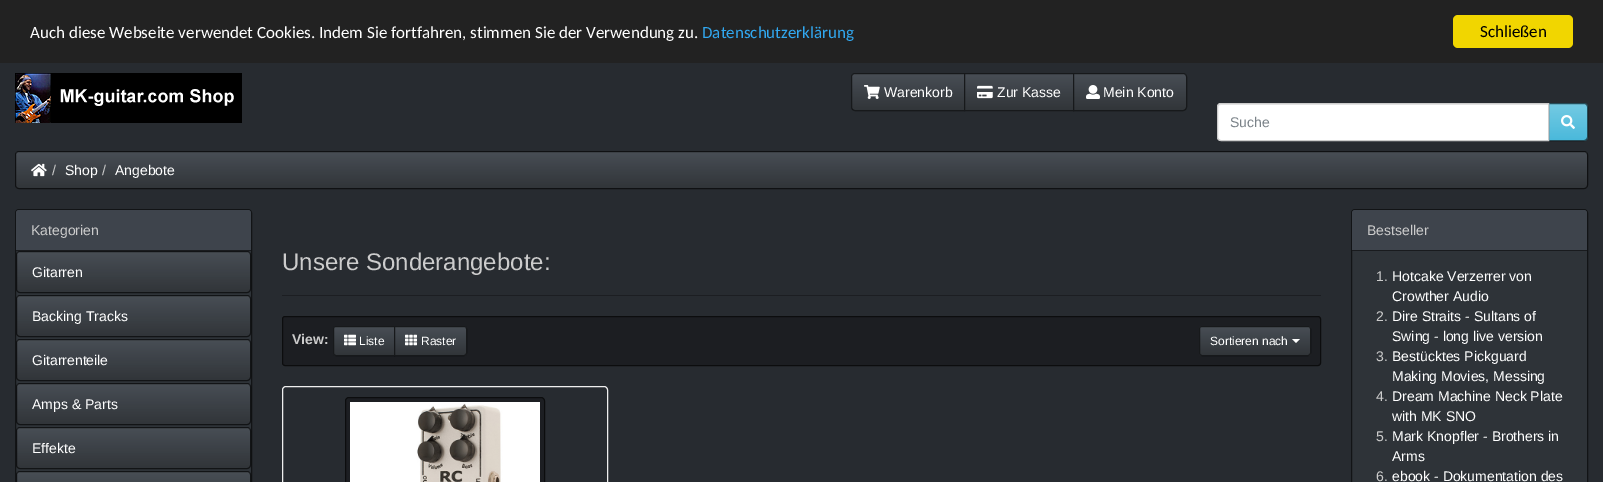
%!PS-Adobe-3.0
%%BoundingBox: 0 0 1603 482
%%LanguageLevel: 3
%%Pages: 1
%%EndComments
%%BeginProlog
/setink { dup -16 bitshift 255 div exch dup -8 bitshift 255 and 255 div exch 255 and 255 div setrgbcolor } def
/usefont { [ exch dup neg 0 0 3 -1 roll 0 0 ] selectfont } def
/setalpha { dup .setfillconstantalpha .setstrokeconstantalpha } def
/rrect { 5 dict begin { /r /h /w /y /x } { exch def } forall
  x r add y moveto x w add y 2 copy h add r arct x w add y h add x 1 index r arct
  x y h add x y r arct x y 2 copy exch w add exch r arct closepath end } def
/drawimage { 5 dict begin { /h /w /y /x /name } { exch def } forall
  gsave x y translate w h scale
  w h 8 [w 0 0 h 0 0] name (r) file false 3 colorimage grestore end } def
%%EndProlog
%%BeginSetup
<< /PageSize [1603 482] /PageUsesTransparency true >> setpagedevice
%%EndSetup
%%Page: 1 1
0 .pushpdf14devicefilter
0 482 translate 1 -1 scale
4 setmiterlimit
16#272B30 setink
0 0 1603 482 rectfill
16#222222 setink
0 0 1603 63 rectfill
/Carlito-Regular 17 usefont
16#FFFFFF setink
30 38 moveto (Auch diese Webseite verwendet Cookies. Indem Sie fortfahren, stimmen Sie der Verwendung zu.) show
16#31A8F0 setink
702 38 moveto (Datenschutzerklärung) show
16#F1D600 setink
1453 15 120 33 5 rrect fill
16#000000 setink
1480 37 moveto (Schließen) show
(img1.raw) 15 73 227 50 drawimage
16#3A3F44 setink
855 73 moveto 965 73 lineto 965 111 lineto 855 111 lineto 853 111 851 109 851 107 curveto 851 77 lineto 851 75 853 73 855 73 curveto closepath fill
gsave 852 74 moveto 964 74 lineto 964 110 lineto 852 110 lineto closepath clip newpath
<< /ShadingType 2 /ColorSpace /DeviceRGB /Coords [908 74 908 110] /Extend [true true] /Function << /FunctionType 3 /Domain [0 1] /Functions [<< /FunctionType 2 /Domain [0 1] /C0 [0.282 0.306 0.333] /C1 [0.227 0.247 0.267] /N 1 >> << /FunctionType 2 /Domain [0 1] /C0 [0.227 0.247 0.267] /C1 [0.192 0.208 0.224] /N 1 >>] /Bounds [0.6] /Encode [0 1 0 1] >> >> shfill grestore
0.6 setalpha
16#000000 setink
855 73.5 moveto 964.5 73.5 lineto 964.5 110.5 lineto 855 110.5 lineto 853 110.5 851.5 109 851.5 107 curveto 851.5 77 lineto 851.5 75 853 73.5 855 73.5 curveto closepath stroke
1 setalpha
(img2.raw) 864 85 16 14 drawimage
/LiberationSans-Regular 14 usefont
16#FFFFFF setink
884 97 moveto (Warenkorb) show
gsave 965 74 moveto 1073 74 lineto 1073 110 lineto 965 110 lineto closepath clip newpath
<< /ShadingType 2 /ColorSpace /DeviceRGB /Coords [1019 74 1019 110] /Extend [true true] /Function << /FunctionType 3 /Domain [0 1] /Functions [<< /FunctionType 2 /Domain [0 1] /C0 [0.282 0.306 0.333] /C1 [0.227 0.247 0.267] /N 1 >> << /FunctionType 2 /Domain [0 1] /C0 [0.227 0.247 0.267] /C1 [0.192 0.208 0.224] /N 1 >>] /Bounds [0.6] /Encode [0 1 0 1] >> >> shfill grestore
16#17191B setink
964.5 73.5 109 37 rectstroke
(img3.raw) 977 85 16 14 drawimage
16#FFFFFF setink
997 97 moveto (Zur Kasse) show
16#3A3F44 setink
1073 73 moveto 1183 73 lineto 1185 73 1187 75 1187 77 curveto 1187 107 lineto 1187 109 1185 111 1183 111 curveto 1073 111 lineto closepath fill
gsave 1074 74 moveto 1186 74 lineto 1186 110 lineto 1074 110 lineto closepath clip newpath
<< /ShadingType 2 /ColorSpace /DeviceRGB /Coords [1130 74 1130 110] /Extend [true true] /Function << /FunctionType 3 /Domain [0 1] /Functions [<< /FunctionType 2 /Domain [0 1] /C0 [0.282 0.306 0.333] /C1 [0.227 0.247 0.267] /N 1 >> << /FunctionType 2 /Domain [0 1] /C0 [0.227 0.247 0.267] /C1 [0.192 0.208 0.224] /N 1 >>] /Bounds [0.6] /Encode [0 1 0 1] >> >> shfill grestore
0.6 setalpha
16#000000 setink
1073.5 73.5 moveto 1183 73.5 lineto 1185 73.5 1186.5 75 1186.5 77 curveto 1186.5 107 lineto 1186.5 109 1185 110.5 1183 110.5 curveto 1073.5 110.5 lineto closepath stroke
1 setalpha
(img4.raw) 1086 85 14 14 drawimage
16#FFFFFF setink
1103 97 moveto (Mein Konto) show
16#5BC0DE setink
1548 103 moveto 1584 103 lineto 1586 103 1588 105 1588 107 curveto 1588 137 lineto 1588 139 1586 141 1584 141 curveto 1548 141 lineto closepath fill
gsave 1549 104 moveto 1587 104 lineto 1587 140 lineto 1549 140 lineto closepath clip newpath
<< /ShadingType 2 /ColorSpace /DeviceRGB /Coords [1568 104 1568 140] /Extend [true true] /Function << /FunctionType 3 /Domain [0 1] /Functions [<< /FunctionType 2 /Domain [0 1] /C0 [0.455 0.792 0.89] /C1 [0.357 0.753 0.871] /N 1 >> << /FunctionType 2 /Domain [0 1] /C0 [0.357 0.753 0.871] /C1 [0.29 0.725 0.859] /N 1 >>] /Bounds [0.6] /Encode [0 1 0 1] >> >> shfill grestore
0.6 setalpha
16#000000 setink
1548.5 103.5 moveto 1584 103.5 lineto 1586 103.5 1587.5 105 1587.5 107 curveto 1587.5 137 lineto 1587.5 139 1586 140.5 1584 140.5 curveto 1548.5 140.5 lineto closepath stroke
1 setalpha
16#FFFFFF setink
1221 103 moveto 1549 103 lineto 1549 141 lineto 1221 141 lineto 1219 141 1217 139 1217 137 curveto 1217 107 lineto 1217 105 1219 103 1221 103 curveto closepath fill
16#ECECEC setink
1221 105 moveto 1548 105 lineto 1548 104 lineto 1221 104 lineto 1219 104 1218 106 1218 108 curveto 1218 106 1219 105 1221 105 curveto closepath fill
16#CCCCCC setink
1221 103.5 moveto 1548.5 103.5 lineto 1548.5 140.5 lineto 1221 140.5 lineto 1219 140.5 1217.5 139 1217.5 137 curveto 1217.5 107 lineto 1217.5 105 1219 103.5 1221 103.5 curveto closepath stroke
16#7A8288 setink
1230 127 moveto (Suche) show
(img5.raw) 1561 115 14 14 drawimage
gsave
15 151 1573 38 4 rrect clip newpath
gsave 16 152 moveto 1587 152 lineto 1587 188 lineto 16 188 lineto closepath clip newpath
<< /ShadingType 2 /ColorSpace /DeviceRGB /Coords [802 152 802 188] /Extend [true true] /Function << /FunctionType 3 /Domain [0 1] /Functions [<< /FunctionType 2 /Domain [0 1] /C0 [0.282 0.306 0.333] /C1 [0.227 0.247 0.267] /N 1 >> << /FunctionType 2 /Domain [0 1] /C0 [0.227 0.247 0.267] /C1 [0.192 0.208 0.224] /N 1 >>] /Bounds [0.6] /Encode [0 1 0 1] >> >> shfill grestore
grestore
0.6 setalpha
16#000000 setink
15.5 151.5 1572 37 3.5 rrect stroke
1 setalpha
(img6.raw) 31 163 16 14 drawimage
16#CCCCCC setink
52 175 moveto (/) show
16#FFFFFF setink
65 175 moveto (Shop) show
16#CCCCCC setink
102 175 moveto (/) show
16#FFFFFF setink
115 175 moveto (Angebote) show
16#2E3338 setink
15 209 237 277 4 rrect fill
0.6 setalpha
16#000000 setink
15.5 209.5 236 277 3.5 rrect stroke
1 setalpha
16#3E444C setink
19 210 moveto 248 210 lineto 249.5 210 251 211.5 251 213 curveto 251 251 lineto 16 251 lineto 16 213 lineto 16 211.5 17.5 210 19 210 curveto closepath fill
16#191B1E setink
16 250 235 1 rectfill
16#CCCCCC setink
31 235 moveto (Kategorien) show
gsave
16 251 235 42 4 rrect clip newpath
gsave 17 252 moveto 250 252 lineto 250 292 lineto 17 292 lineto closepath clip newpath
<< /ShadingType 2 /ColorSpace /DeviceRGB /Coords [134 252 134 292] /Extend [true true] /Function << /FunctionType 3 /Domain [0 1] /Functions [<< /FunctionType 2 /Domain [0 1] /C0 [0.282 0.306 0.333] /C1 [0.227 0.247 0.267] /N 1 >> << /FunctionType 2 /Domain [0 1] /C0 [0.227 0.247 0.267] /C1 [0.192 0.208 0.224] /N 1 >>] /Bounds [0.6] /Encode [0 1 0 1] >> >> shfill grestore
grestore
0.6 setalpha
16#000000 setink
16.5 251.5 234 41 3.5 rrect stroke
1 setalpha
16#FFFFFF setink
32 277 moveto (Gitarren) show
gsave
16 295 235 42 4 rrect clip newpath
gsave 17 296 moveto 250 296 lineto 250 336 lineto 17 336 lineto closepath clip newpath
<< /ShadingType 2 /ColorSpace /DeviceRGB /Coords [134 296 134 336] /Extend [true true] /Function << /FunctionType 3 /Domain [0 1] /Functions [<< /FunctionType 2 /Domain [0 1] /C0 [0.282 0.306 0.333] /C1 [0.227 0.247 0.267] /N 1 >> << /FunctionType 2 /Domain [0 1] /C0 [0.227 0.247 0.267] /C1 [0.192 0.208 0.224] /N 1 >>] /Bounds [0.6] /Encode [0 1 0 1] >> >> shfill grestore
grestore
0.6 setalpha
16#000000 setink
16.5 295.5 234 41 3.5 rrect stroke
1 setalpha
16#FFFFFF setink
32 321 moveto (Backing Tracks) show
gsave
16 339 235 42 4 rrect clip newpath
gsave 17 340 moveto 250 340 lineto 250 380 lineto 17 380 lineto closepath clip newpath
<< /ShadingType 2 /ColorSpace /DeviceRGB /Coords [134 340 134 380] /Extend [true true] /Function << /FunctionType 3 /Domain [0 1] /Functions [<< /FunctionType 2 /Domain [0 1] /C0 [0.282 0.306 0.333] /C1 [0.227 0.247 0.267] /N 1 >> << /FunctionType 2 /Domain [0 1] /C0 [0.227 0.247 0.267] /C1 [0.192 0.208 0.224] /N 1 >>] /Bounds [0.6] /Encode [0 1 0 1] >> >> shfill grestore
grestore
0.6 setalpha
16#000000 setink
16.5 339.5 234 41 3.5 rrect stroke
1 setalpha
16#FFFFFF setink
32 365 moveto (Gitarrenteile) show
gsave
16 383 235 42 4 rrect clip newpath
gsave 17 384 moveto 250 384 lineto 250 424 lineto 17 424 lineto closepath clip newpath
<< /ShadingType 2 /ColorSpace /DeviceRGB /Coords [134 384 134 424] /Extend [true true] /Function << /FunctionType 3 /Domain [0 1] /Functions [<< /FunctionType 2 /Domain [0 1] /C0 [0.282 0.306 0.333] /C1 [0.227 0.247 0.267] /N 1 >> << /FunctionType 2 /Domain [0 1] /C0 [0.227 0.247 0.267] /C1 [0.192 0.208 0.224] /N 1 >>] /Bounds [0.6] /Encode [0 1 0 1] >> >> shfill grestore
grestore
0.6 setalpha
16#000000 setink
16.5 383.5 234 41 3.5 rrect stroke
1 setalpha
16#FFFFFF setink
32 409 moveto (Amps & Parts) show
gsave
16 427 235 42 4 rrect clip newpath
gsave 17 428 moveto 250 428 lineto 250 468 lineto 17 468 lineto closepath clip newpath
<< /ShadingType 2 /ColorSpace /DeviceRGB /Coords [134 428 134 468] /Extend [true true] /Function << /FunctionType 3 /Domain [0 1] /Functions [<< /FunctionType 2 /Domain [0 1] /C0 [0.282 0.306 0.333] /C1 [0.227 0.247 0.267] /N 1 >> << /FunctionType 2 /Domain [0 1] /C0 [0.227 0.247 0.267] /C1 [0.192 0.208 0.224] /N 1 >>] /Bounds [0.6] /Encode [0 1 0 1] >> >> shfill grestore
grestore
0.6 setalpha
16#000000 setink
16.5 427.5 234 41 3.5 rrect stroke
1 setalpha
16#FFFFFF setink
32 453 moveto (Effekte) show
gsave 17 472 moveto 250 472 lineto 250 482 lineto 17 482 lineto closepath clip newpath
<< /ShadingType 2 /ColorSpace /DeviceRGB /Coords [134 472 134 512] /Extend [true true] /Function << /FunctionType 3 /Domain [0 1] /Functions [<< /FunctionType 2 /Domain [0 1] /C0 [0.282 0.306 0.333] /C1 [0.227 0.247 0.267] /N 1 >> << /FunctionType 2 /Domain [0 1] /C0 [0.227 0.247 0.267] /C1 [0.192 0.208 0.224] /N 1 >>] /Bounds [0.6] /Encode [0 1 0 1] >> >> shfill grestore
0.6 setalpha
16#000000 setink
16.5 471.5 234 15 3.5 rrect stroke
1 setalpha
16#1C1E22 setink
282 295 1039 1 rectfill
/LiberationSans-Regular 24 usefont
16#CCCCCC setink
282 270 moveto (Unsere Sonderangebote:) show
16#1C1E22 setink
282.5 316.5 1038 49 2.5 rrect gsave fill grestore
16#0C0D0E setink
stroke
/LiberationSans-Bold 14 usefont
16#CCCCCC setink
292 344 moveto (View:) show
16#3A3F44 setink
336 326 moveto 395 326 lineto 395 356 lineto 336 356 lineto 334.5 356 333 354.5 333 353 curveto 333 329 lineto 333 327.5 334.5 326 336 326 curveto closepath fill
gsave 334 327 moveto 394 327 lineto 394 355 lineto 334 355 lineto closepath clip newpath
<< /ShadingType 2 /ColorSpace /DeviceRGB /Coords [364 327 364 355] /Extend [true true] /Function << /FunctionType 3 /Domain [0 1] /Functions [<< /FunctionType 2 /Domain [0 1] /C0 [0.282 0.306 0.333] /C1 [0.227 0.247 0.267] /N 1 >> << /FunctionType 2 /Domain [0 1] /C0 [0.227 0.247 0.267] /C1 [0.192 0.208 0.224] /N 1 >>] /Bounds [0.6] /Encode [0 1 0 1] >> >> shfill grestore
0.6 setalpha
16#000000 setink
336 326.5 moveto 394.5 326.5 lineto 394.5 355.5 lineto 336 355.5 lineto 334.5 355.5 333.5 354.5 333.5 353 curveto 333.5 329 lineto 333.5 327.5 334.5 326.5 336 326.5 curveto closepath stroke
1 setalpha
(img7.raw) 344 334 12 12 drawimage
/LiberationSans-Regular 12 usefont
16#FFFFFF setink
359 345 moveto (Liste) show
16#3A3F44 setink
394 326 moveto 464 326 lineto 465.5 326 467 327.5 467 329 curveto 467 353 lineto 467 354.5 465.5 356 464 356 curveto 394 356 lineto closepath fill
gsave 395 327 moveto 466 327 lineto 466 355 lineto 395 355 lineto closepath clip newpath
<< /ShadingType 2 /ColorSpace /DeviceRGB /Coords [431 327 431 355] /Extend [true true] /Function << /FunctionType 3 /Domain [0 1] /Functions [<< /FunctionType 2 /Domain [0 1] /C0 [0.282 0.306 0.333] /C1 [0.227 0.247 0.267] /N 1 >> << /FunctionType 2 /Domain [0 1] /C0 [0.227 0.247 0.267] /C1 [0.192 0.208 0.224] /N 1 >>] /Bounds [0.6] /Encode [0 1 0 1] >> >> shfill grestore
0.6 setalpha
16#000000 setink
394.5 326.5 moveto 464 326.5 lineto 465.5 326.5 466.5 327.5 466.5 329 curveto 466.5 353 lineto 466.5 354.5 465.5 355.5 464 355.5 curveto 394.5 355.5 lineto closepath stroke
1 setalpha
(img8.raw) 405 334 12 12 drawimage
16#FFFFFF setink
421 345 moveto (Raster) show
16#3A3F44 setink
1199 326 112 30 3 rrect fill
gsave 1200 327 moveto 1310 327 lineto 1310 355 lineto 1200 355 lineto closepath clip newpath
<< /ShadingType 2 /ColorSpace /DeviceRGB /Coords [1255 327 1255 355] /Extend [true true] /Function << /FunctionType 3 /Domain [0 1] /Functions [<< /FunctionType 2 /Domain [0 1] /C0 [0.282 0.306 0.333] /C1 [0.227 0.247 0.267] /N 1 >> << /FunctionType 2 /Domain [0 1] /C0 [0.227 0.247 0.267] /C1 [0.192 0.208 0.224] /N 1 >>] /Bounds [0.6] /Encode [0 1 0 1] >> >> shfill grestore
0.6 setalpha
16#000000 setink
1199.5 326.5 111 29 2.5 rrect stroke
1 setalpha
16#FFFFFF setink
1210 345 moveto (Sortieren nach) show
1292 339 moveto 1300 339 lineto 1296 343 lineto closepath fill
16#EEEEEE setink
282.5 386.5 325 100 3.5 rrect stroke
16#1C1E22 setink
345.5 397.5 199 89 3.5 rrect gsave fill grestore
16#0C0D0E setink
stroke
(img9.raw) 350 402 190 80 drawimage
16#2E3338 setink
1351 209 237 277 4 rrect fill
0.6 setalpha
16#000000 setink
1351.5 209.5 236 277 3.5 rrect stroke
1 setalpha
16#3E444C setink
1355 210 moveto 1584 210 lineto 1585.5 210 1587 211.5 1587 213 curveto 1587 251 lineto 1352 251 lineto 1352 213 lineto 1352 211.5 1353.5 210 1355 210 curveto closepath fill
16#191B1E setink
1352 250 235 1 rectfill
/LiberationSans-Regular 14 usefont
16#CCCCCC setink
1367 235 moveto (Bestseller) show
1376 281 moveto (1.) show
16#FFFFFF setink
1392 281 moveto (Hotcake Verzerrer von) show
1392 301 moveto (Crowther Audio) show
16#CCCCCC setink
1376 321 moveto (2.) show
16#FFFFFF setink
1392 321 moveto (Dire Straits - Sultans of) show
1392 341 moveto (Swing - long live version) show
16#CCCCCC setink
1376 361 moveto (3.) show
16#FFFFFF setink
1392 361 moveto (Bestücktes Pickguard) show
1392 381 moveto (Making Movies, Messing) show
16#CCCCCC setink
1376 401 moveto (4.) show
16#FFFFFF setink
1392 401 moveto (Dream Machine Neck Plate) show
1392 421 moveto (with MK SNO) show
16#CCCCCC setink
1376 441 moveto (5.) show
16#FFFFFF setink
1392 441 moveto (Mark Knopfler - Brothers in) show
1392 461 moveto (Arms) show
16#CCCCCC setink
1376 481 moveto (6.) show
16#FFFFFF setink
1392 481 moveto (ebook - Dokumentation des) show
.poppdf14devicefilter showpage
%%EOF
